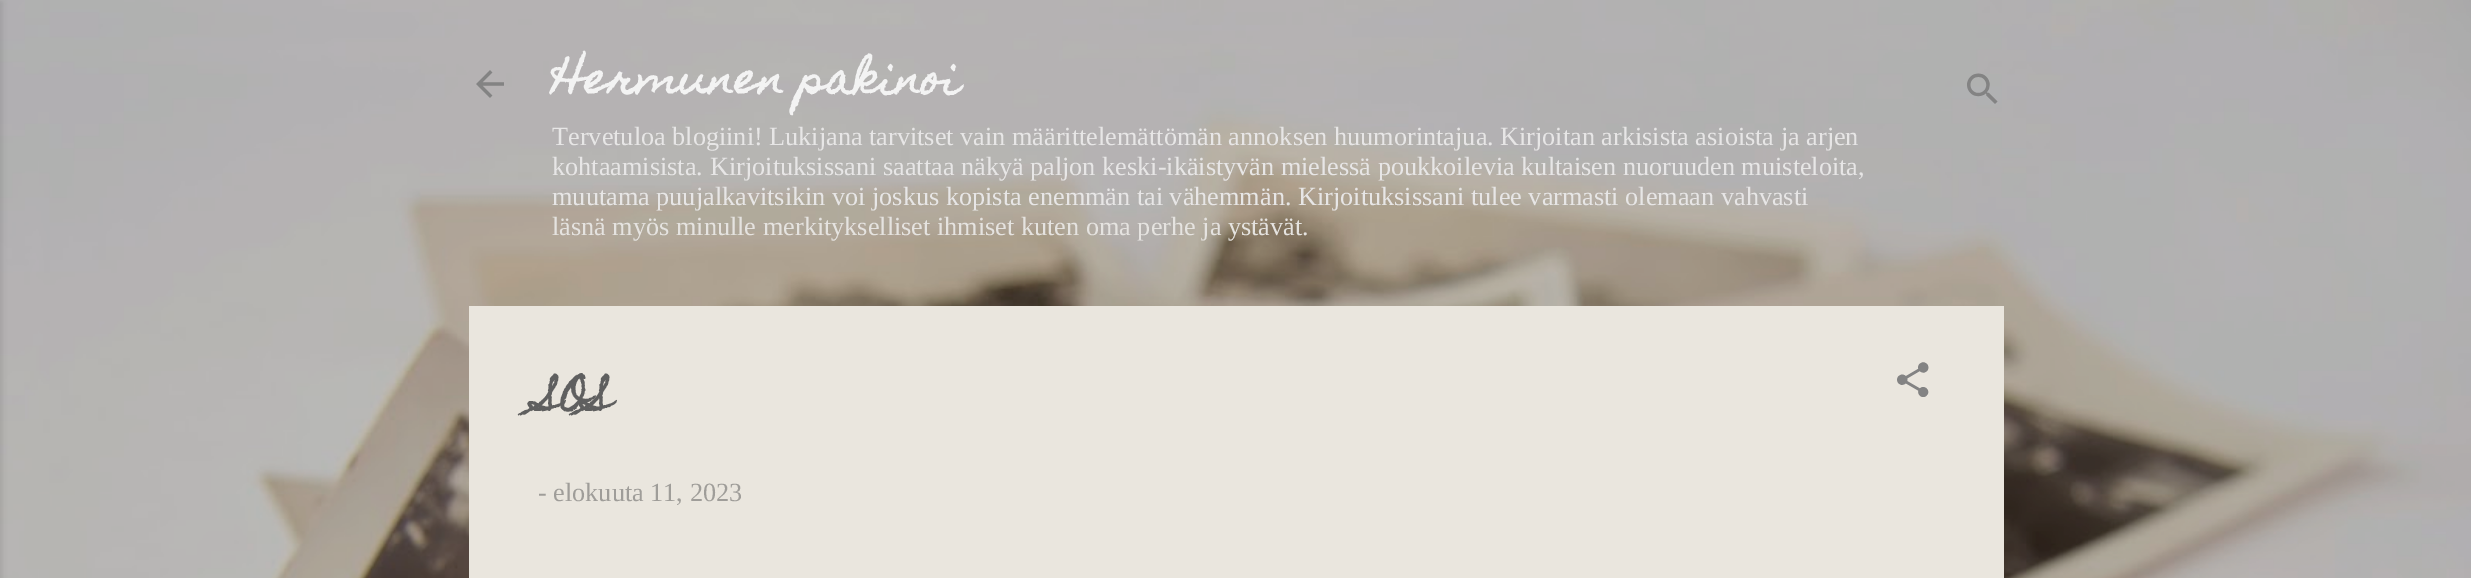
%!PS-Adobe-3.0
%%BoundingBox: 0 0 2471 578
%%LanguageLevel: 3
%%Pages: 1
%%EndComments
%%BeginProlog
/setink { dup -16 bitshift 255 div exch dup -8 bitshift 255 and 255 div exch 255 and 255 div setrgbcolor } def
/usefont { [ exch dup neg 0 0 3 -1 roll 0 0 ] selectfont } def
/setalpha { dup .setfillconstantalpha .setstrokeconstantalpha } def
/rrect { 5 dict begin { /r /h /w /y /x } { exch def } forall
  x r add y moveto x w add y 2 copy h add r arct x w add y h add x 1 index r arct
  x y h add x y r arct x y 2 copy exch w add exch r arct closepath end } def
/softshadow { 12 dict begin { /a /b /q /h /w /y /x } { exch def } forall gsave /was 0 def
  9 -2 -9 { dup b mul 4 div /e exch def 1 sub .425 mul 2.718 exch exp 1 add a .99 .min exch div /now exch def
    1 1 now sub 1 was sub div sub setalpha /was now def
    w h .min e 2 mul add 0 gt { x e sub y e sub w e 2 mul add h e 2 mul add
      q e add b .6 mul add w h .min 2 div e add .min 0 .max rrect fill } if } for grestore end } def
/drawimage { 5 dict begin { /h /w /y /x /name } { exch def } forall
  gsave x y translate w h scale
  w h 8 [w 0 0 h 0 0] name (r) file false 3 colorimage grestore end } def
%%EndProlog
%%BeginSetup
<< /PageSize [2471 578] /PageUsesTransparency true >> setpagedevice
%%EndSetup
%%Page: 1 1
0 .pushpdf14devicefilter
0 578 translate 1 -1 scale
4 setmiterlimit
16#FFFFFF setink
0 0 2471 578 rectfill
(img1.raw) 0 0 2471 578 drawimage
16#000000 setink
-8 2 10 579 0 2.5 0.1 softshadow
(img2.raw) 476 70 28 28 drawimage
/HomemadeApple-Bold 42 usefont
16#F3F3F3 setink
552 93 moveto (Hermunen pakinoi) show
/LiberationSerif-Regular 26.25 usefont
16#E7E6E6 setink
[
    [(Tervetuloa blogiini! Lukijana tarvitset vain määrittelemättömän annoksen huumorintajua.) 552 145]
    [(Kirjoitan arkisista asioista ja arjen) 1500 145]
    [(kohtaamisista.) 552 175]
    [(Kirjoituksissani saattaa näkyä paljon keski-ikäistyvän mielessä poukkoilevia kultaisen nuoruuden muisteloita,) 710 175]
    [(muutama puujalkavitsikin voi joskus kopista enemmän tai vähemmän.) 552 205]
    [(Kirjoituksissani tulee varmasti olemaan vahvasti) 1298 205]
] { aload pop moveto show } forall
16#E5E3E0 setink
552 235 moveto (läsnä myös minulle merkitykselliset ihmiset kuten oma perhe ja ystävät.) show
(img3.raw) 1967 73 31 31 drawimage
16#EAE6DE setink
469 306 1535 272 rectfill
/HomemadeApple-Bold 38 usefont
16#5F5F5F setink
538 410 moveto (SOS) show
(img4.raw) 1897 362 32 35 drawimage
/LiberationSerif-Regular 26.25 usefont
16#9F9D99 setink
538 501 moveto (- elokuuta 11, 2023) show
.poppdf14devicefilter showpage
%%EOF
